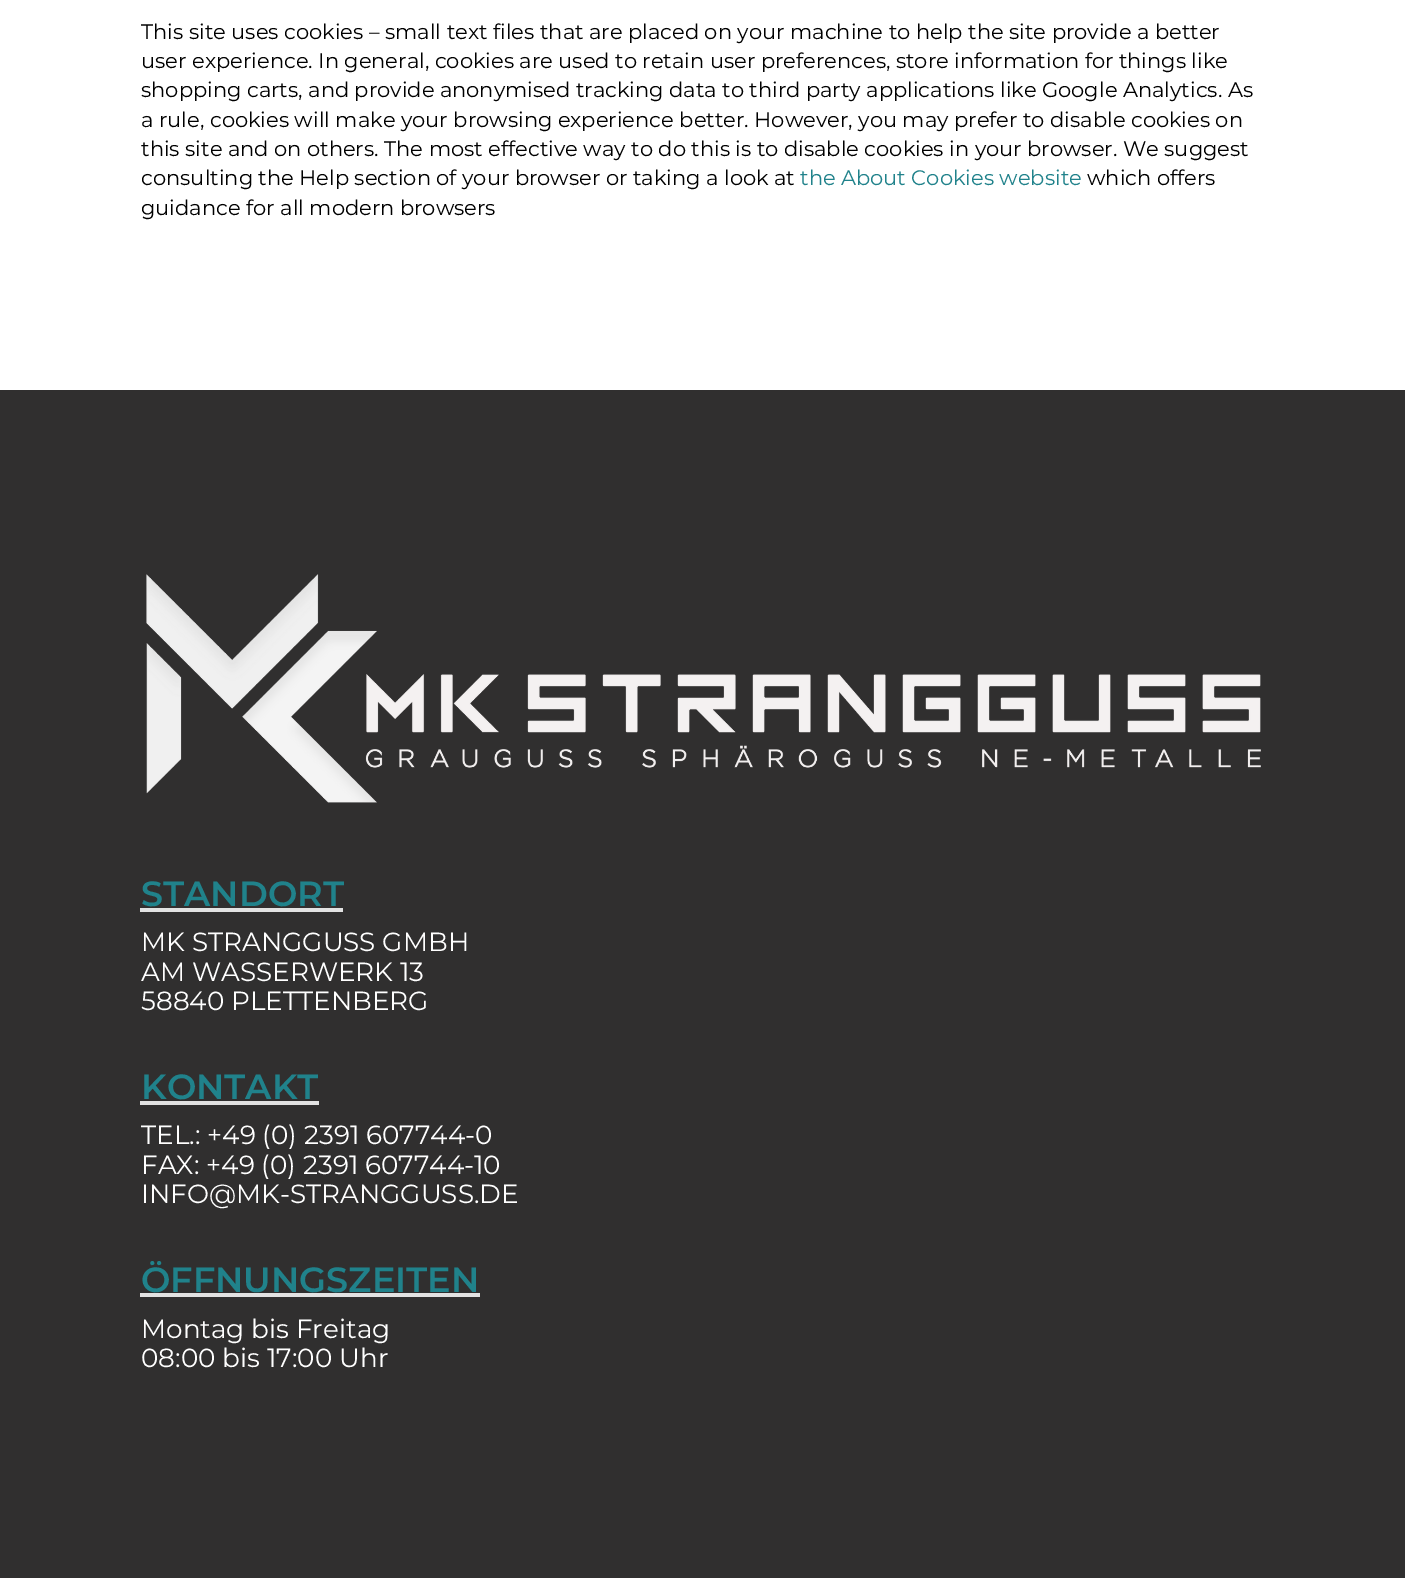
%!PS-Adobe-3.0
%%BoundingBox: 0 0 1405 1578
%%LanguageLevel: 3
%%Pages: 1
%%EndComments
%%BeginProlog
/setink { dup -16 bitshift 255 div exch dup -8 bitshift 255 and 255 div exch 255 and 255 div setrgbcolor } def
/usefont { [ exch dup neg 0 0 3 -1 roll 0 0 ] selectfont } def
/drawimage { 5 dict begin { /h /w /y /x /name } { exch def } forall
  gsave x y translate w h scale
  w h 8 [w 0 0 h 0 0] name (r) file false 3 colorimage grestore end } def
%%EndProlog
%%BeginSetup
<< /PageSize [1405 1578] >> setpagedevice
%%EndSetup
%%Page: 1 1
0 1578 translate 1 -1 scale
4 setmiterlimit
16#FFFFFF setink
0 0 1405 1578 rectfill
/Montserrat-Regular 21 usefont
16#000000 setink
[
    [(This site uses cookies – small text files that are placed on your machine to help the site provide a better) 141 39]
    [(user experience. In general, cookies are used to retain user preferences, store information for things like) 141 68]
    [(shopping carts, and provide anonymised tracking data to third party applications like Google Analytics. As) 141 97]
    [(a rule, cookies will make your browsing experience better. However, you may prefer to disable cookies on) 141 127]
    [(this site and on others. The most effective way to do this is to disable cookies in your browser. We suggest) 141 156]
    [(consulting the Help section of your browser or taking a look at) 141 185]
] { aload pop moveto show } forall
16#20828B setink
800 185 moveto (the About Cookies website) show
16#000000 setink
1087 185 moveto (which offers) show
141 215 moveto (guidance for all modern browsers) show
16#302F2F setink
0 390 1405 1188 rectfill
(img1.raw) 146 574 1115 229 drawimage
/Montserrat-SemiBold 35 usefont
16#20828B setink
141 906 moveto (STANDORT) show
16#E2E2E2 setink
140 908 203 4 rectfill
/Montserrat-Regular 26.25 usefont
16#FFFFFF setink
[
    [(MK STRANGGUSS GMBH) 141 951]
    [(AM WASSERWERK 13) 141 981]
    [(58840 PLETTENBERG) 141 1010]
] { aload pop moveto show } forall
/Montserrat-SemiBold 35 usefont
16#20828B setink
141 1099 moveto (KONTAKT) show
16#E2E2E2 setink
140 1101 179 4 rectfill
/Montserrat-Regular 26.25 usefont
16#FFFFFF setink
[
    [(TEL.: +49 \(0\) 2391 607744-0) 141 1144]
    [(FAX: +49 \(0\) 2391 607744-10) 141 1174]
    [(INFO@MK-STRANGGUSS.DE) 141 1203]
] { aload pop moveto show } forall
/Montserrat-SemiBold 35 usefont
16#20828B setink
141 1292 moveto (ÖFFNUNGSZEITEN) show
16#E2E2E2 setink
140 1293 340 4 rectfill
/Montserrat-Regular 26.25 usefont
16#FFFFFF setink
141 1338 moveto (Montag bis Freitag) show
141 1367 moveto (08:00 bis 17:00 Uhr) show
showpage
%%EOF
